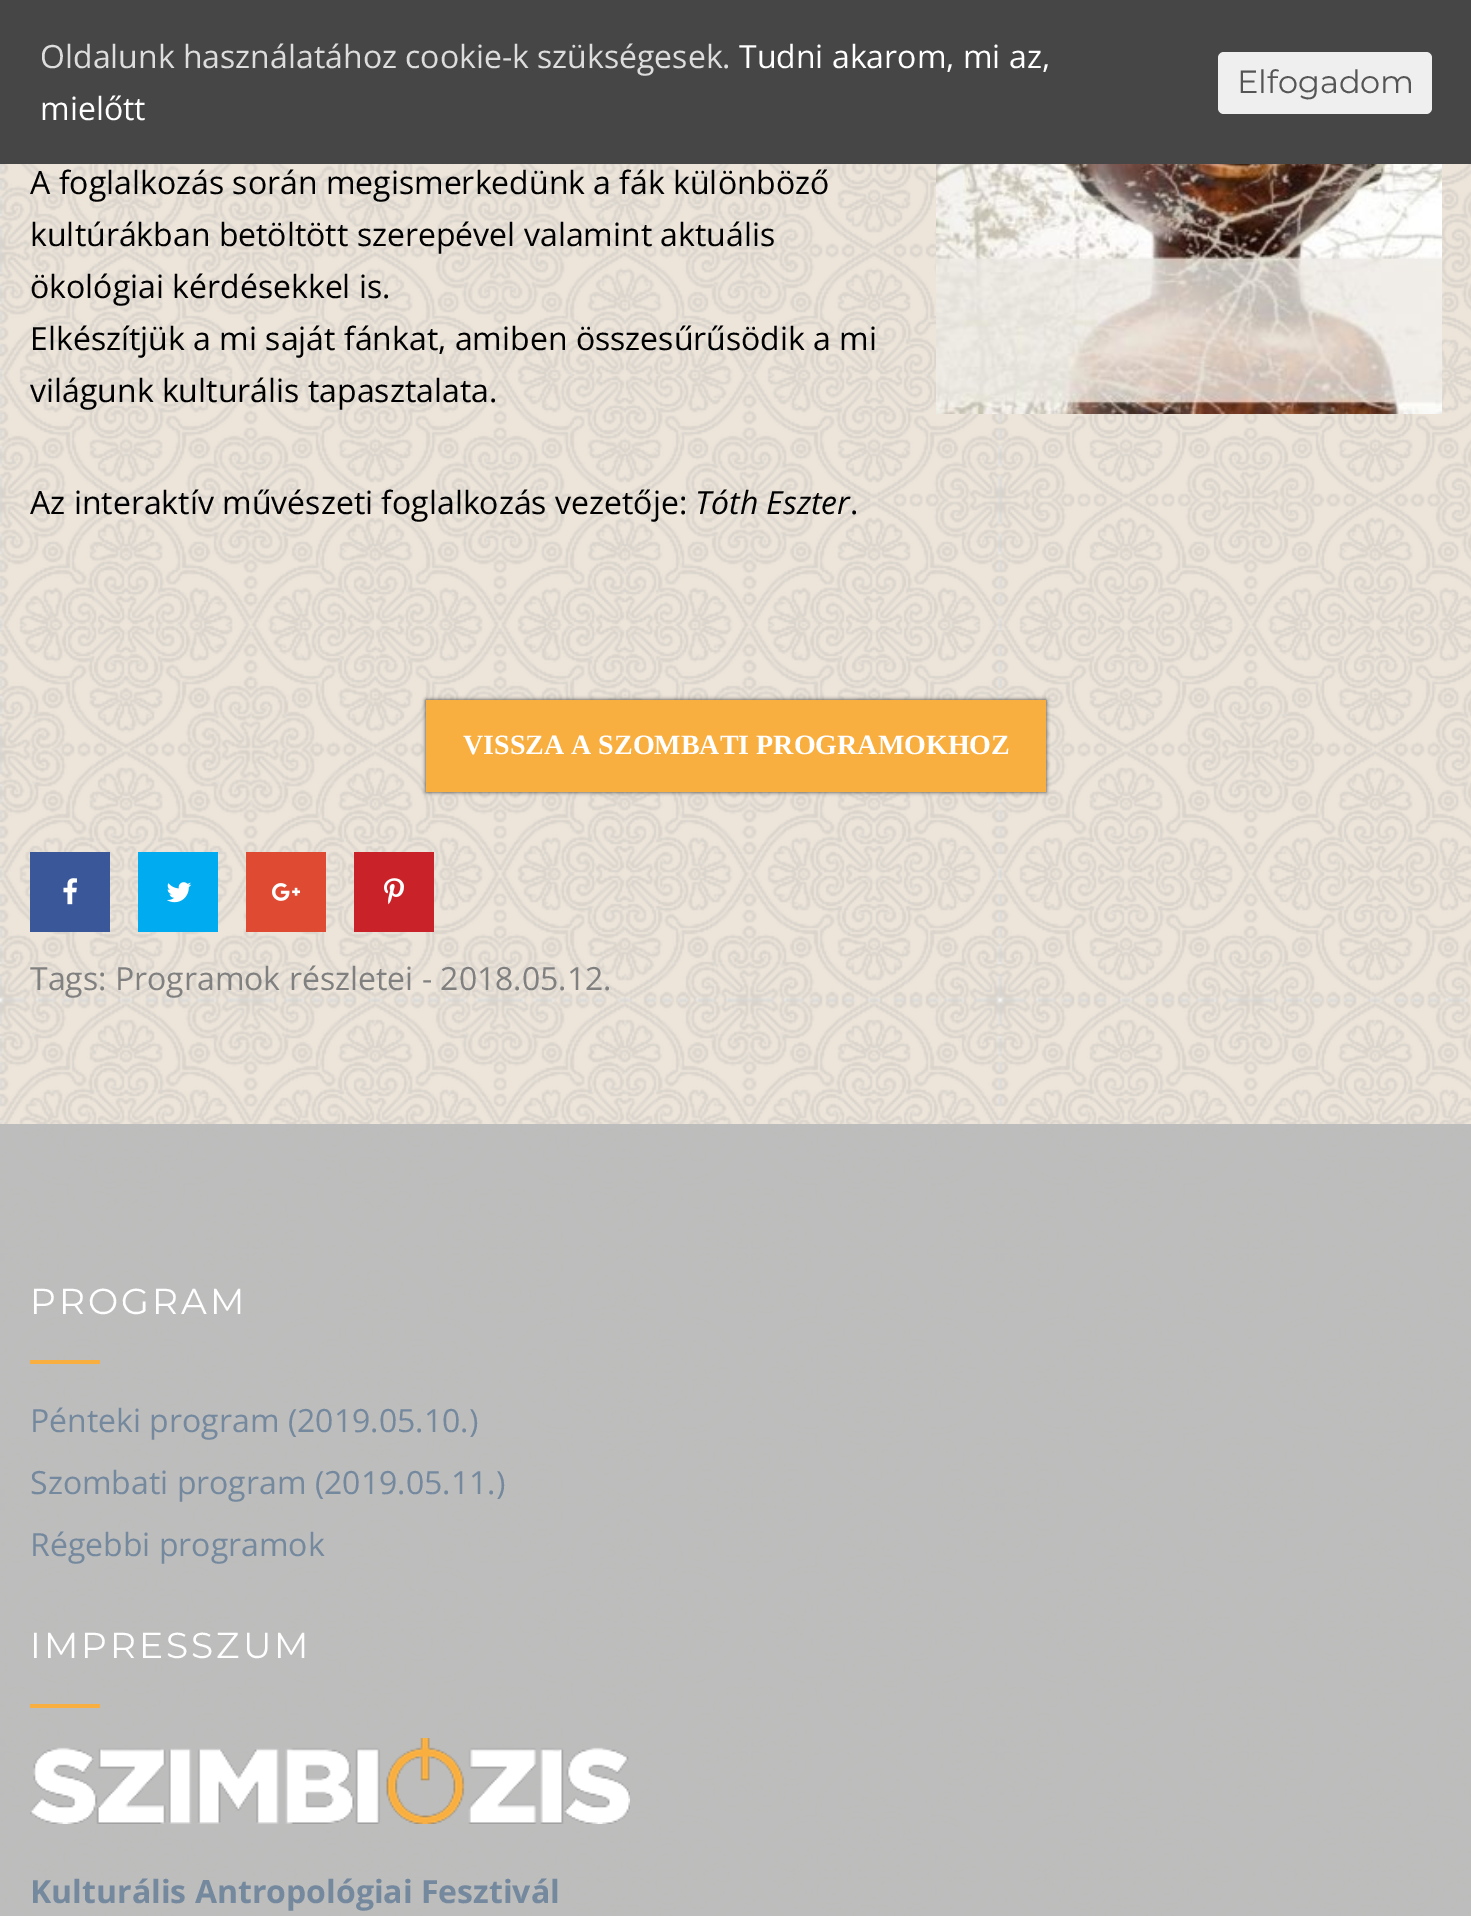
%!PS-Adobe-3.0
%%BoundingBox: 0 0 1471 1916
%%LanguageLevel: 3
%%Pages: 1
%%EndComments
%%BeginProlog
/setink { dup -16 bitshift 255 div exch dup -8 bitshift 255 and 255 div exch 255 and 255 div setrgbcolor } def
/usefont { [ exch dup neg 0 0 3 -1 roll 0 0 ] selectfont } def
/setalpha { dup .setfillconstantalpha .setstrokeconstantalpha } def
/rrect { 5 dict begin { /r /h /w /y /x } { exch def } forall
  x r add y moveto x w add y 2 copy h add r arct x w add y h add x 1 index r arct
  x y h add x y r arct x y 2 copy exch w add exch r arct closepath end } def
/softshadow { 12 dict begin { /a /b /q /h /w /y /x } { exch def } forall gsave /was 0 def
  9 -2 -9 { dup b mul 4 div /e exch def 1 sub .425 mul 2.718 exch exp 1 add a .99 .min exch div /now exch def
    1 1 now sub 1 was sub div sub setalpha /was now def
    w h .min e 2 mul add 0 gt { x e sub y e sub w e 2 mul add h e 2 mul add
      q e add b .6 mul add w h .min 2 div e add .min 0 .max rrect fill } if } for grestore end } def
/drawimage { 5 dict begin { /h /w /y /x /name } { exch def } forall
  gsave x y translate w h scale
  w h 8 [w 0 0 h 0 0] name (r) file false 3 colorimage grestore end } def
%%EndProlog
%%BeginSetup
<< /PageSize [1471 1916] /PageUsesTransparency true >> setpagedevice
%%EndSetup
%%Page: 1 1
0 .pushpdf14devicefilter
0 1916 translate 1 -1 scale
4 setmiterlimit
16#EDE5DA setink
0 0 1471 1916 rectfill
(img1.raw) 0 164 1471 1752 drawimage
16#464646 setink
0 0 1471 164 rectfill
/OpenSans-Regular 32 usefont
16#DDDDDD setink
40 68 moveto (Oldalunk használatához cookie-k szükségesek.) show
16#FFFFFF setink
739 68 moveto (Tudni akarom, mi az,) show
40 120 moveto (mielőtt) show
16#EFEFEF setink
1218 52 214 62 6 rrect fill
/Montserrat-Regular 32 usefont
16#555555 setink
1237 93 moveto (Elfogadom) show
/OpenSans-Regular 32 usefont
16#000000 setink
[
    [(A foglalkozás során megismerkedünk a fák különböző) 30 194]
    [(kultúrákban betöltött szerepével valamint aktuális) 30 246]
    [(ökológiai kérdésekkel is.) 30 298]
    [(Elkészítjük a mi saját fánkat, amiben összesűrűsödik a mi) 30 350]
    [(világunk kulturális tapasztalata.) 30 402]
] { aload pop moveto show } forall
(img2.raw) 936 164 506 250 drawimage
30 514 moveto (Az interaktív művészeti foglalkozás vezetője:) show
/OpenSans-Italic 32 usefont
695 514 moveto (Tóth Eszter) show
/OpenSans-Regular 32 usefont
850 514 moveto (.) show
16#333333 setink
426 700 620 92 0 2 1 softshadow
16#F9AE40 setink
426 700 620 92 rectfill
/LiberationSerif-Bold 28 usefont
16#FFFFFF setink
463 754 moveto (VISSZA A SZOMBATI PROGRAMOKHOZ) show
16#3A579A setink
30 852 80 80 rectfill
(img3.raw) 63 878 14 27 drawimage
16#00ABF0 setink
138 852 80 80 rectfill
(img4.raw) 167 882 25 21 drawimage
16#DF4A32 setink
246 852 80 80 rectfill
(img5.raw) 272 883 28 18 drawimage
16#C92228 setink
354 852 80 80 rectfill
(img6.raw) 384 878 20 27 drawimage
/OpenSans-Regular 32 usefont
16#808080 setink
30 990 moveto (Tags: Programok részletei - 2018.05.12.) show
0.98 setalpha
16#BCBCBC setink
0 1124 1471 792 rectfill
/Montserrat-Regular 36 usefont
1 setalpha
16#FFFFFF setink
30 1314 moveto 3 0 (PROGRAM) ashow
16#F9AE40 setink
30 1360 70 4 rectfill
/OpenSans-Regular 32 usefont
16#74889E setink
[
    [(Pénteki program \(2019.05.10.\)) 30 1432]
    [(Szombati program \(2019.05.11.\)) 30 1494]
    [(Régebbi programok) 30 1556]
] { aload pop moveto show } forall
/Montserrat-Regular 36 usefont
16#FFFFFF setink
30 1658 moveto 3 0 (IMPRESSZUM) ashow
16#F9AE40 setink
30 1704 70 4 rectfill
(img7.raw) 30 1738 600 86 drawimage
/OpenSans-Bold 32 usefont
16#74889E setink
30 1903 moveto (Kulturális Antropológiai Fesztivál) show
.poppdf14devicefilter showpage
%%EOF
